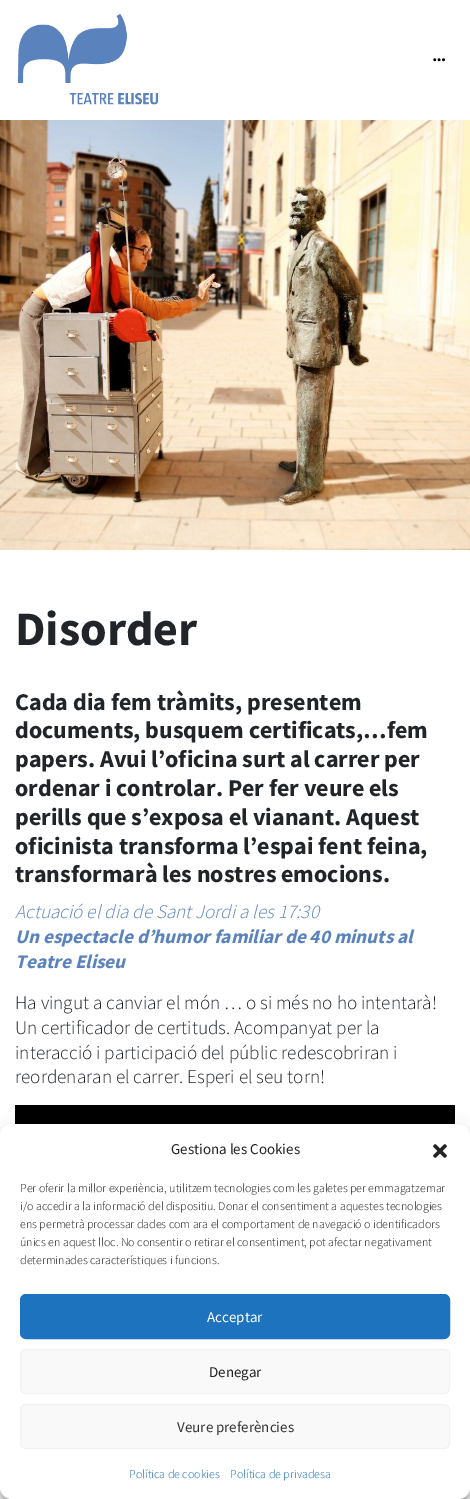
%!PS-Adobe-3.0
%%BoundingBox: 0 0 470 1499
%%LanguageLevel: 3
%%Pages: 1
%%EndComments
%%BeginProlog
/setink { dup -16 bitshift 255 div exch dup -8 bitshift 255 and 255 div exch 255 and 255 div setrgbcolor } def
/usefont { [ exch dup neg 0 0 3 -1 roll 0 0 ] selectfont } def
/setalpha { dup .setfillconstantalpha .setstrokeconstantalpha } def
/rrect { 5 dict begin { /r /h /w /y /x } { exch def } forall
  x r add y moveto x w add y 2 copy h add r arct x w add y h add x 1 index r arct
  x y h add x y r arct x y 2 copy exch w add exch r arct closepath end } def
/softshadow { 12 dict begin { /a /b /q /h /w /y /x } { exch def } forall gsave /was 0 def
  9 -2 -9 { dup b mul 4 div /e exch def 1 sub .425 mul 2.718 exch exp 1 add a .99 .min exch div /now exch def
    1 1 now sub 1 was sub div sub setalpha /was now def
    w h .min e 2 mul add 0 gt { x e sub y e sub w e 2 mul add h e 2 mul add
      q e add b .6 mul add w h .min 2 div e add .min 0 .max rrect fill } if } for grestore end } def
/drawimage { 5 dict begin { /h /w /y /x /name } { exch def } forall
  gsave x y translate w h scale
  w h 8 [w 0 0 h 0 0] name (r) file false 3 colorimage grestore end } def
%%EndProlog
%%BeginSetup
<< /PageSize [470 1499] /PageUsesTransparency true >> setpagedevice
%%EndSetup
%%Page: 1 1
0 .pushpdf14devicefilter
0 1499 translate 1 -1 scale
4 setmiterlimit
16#FFFFFF setink
0 0 470 1499 rectfill
(img1.raw) 18 14 140 91 drawimage
(img2.raw) 433 58 12 4 drawimage
(img3.raw) 0 120 470 430 drawimage
/SourceSansPro-Bold 48 usefont
16#212529 setink
15 645 moveto (Disorder) show
/SourceSansPro-Bold 24 usefont
[
    [(Cada dia fem tràmits, presentem) 15 710]
    [(documents, busquem certificats,…fem) 15 738]
    [(papers. Avui l’oficina surt al carrer per) 15 767]
    [(ordenar i controlar. Per fer veure els) 15 796]
    [(perills que s’exposa el vianant. Aquest) 15 825]
    [(oficinista transforma l’espai fent feina,) 15 854]
    [(transformarà les nostres emocions.) 15 882]
] { aload pop moveto show } forall
/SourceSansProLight-LightItalic 19.2 usefont
16#5A83BE setink
15 918 moveto (Actuació el dia de Sant Jordi a les 17:30) show
/SourceSansPro-BoldItalic 19.2 usefont
15 943 moveto (Un espectacle d’humor familiar de 40 minuts al) show
15 968 moveto (Teatre Eliseu) show
/SourceSansProLight-Light 19.2 usefont
16#212529 setink
[
    [(Ha vingut a canviar el món … o si més no ho intentarà!) 15 1009]
    [(Un certificador de certituds. Acompanyat per la) 15 1034]
    [(interacció i participació del públic redescobriran i) 15 1059]
    [(reordenaran el carrer. Esperi el seu torn!) 15 1083]
] { aload pop moveto show } forall
(img4.raw) 15 1105 440 19 drawimage
16#000000 setink
0 1130 470 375 12 3 0.23 softshadow
0 1134 470 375 12 10 0.19 softshadow
16#FFFFFF setink
0 1124 470 375 12 rrect fill
/SourceSansPro-Regular 15 usefont
16#222222 setink
171 1154 moveto (Gestiona les Cookies) show
(img5.raw) 433 1144 14 14 drawimage
/SourceSansProLight-Light 12 usefont
[
    [(Per oferir la millor experiència, utilitzem tecnologies com les galetes per emmagatzemar) 20 1192]
    [(i/o accedir a la informació del dispositiu. Donar el consentiment a aquestes tecnologies) 20 1210]
    [(ens permetrà processar dades com ara el comportament de navegació o identificadors) 20 1228]
    [(únics en aquest lloc. No consentir o retirar el consentiment, pot afectar negativament) 20 1246]
    [(determinades característiques i funcions.) 20 1264]
] { aload pop moveto show } forall
16#1E73BE setink
20.5 1294.5 429 44 5.5 rrect gsave fill grestore
stroke
/SourceSansPro-Regular 15 usefont
16#FFFFFF setink
207 1322 moveto (Acceptar) show
16#F9F9F9 setink
20.5 1349.5 429 44 5.5 rrect gsave fill grestore
16#F2F2F2 setink
stroke
16#222222 setink
209 1377 moveto (Denegar) show
16#F9F9F9 setink
20.5 1404.5 429 44 5.5 rrect gsave fill grestore
16#F2F2F2 setink
stroke
16#333333 setink
177 1432 moveto (Veure preferències) show
/SourceSansProLight-Light 12 usefont
16#1E73BE setink
129 1478 moveto (Política de cookies) show
230 1478 moveto (Política de privadesa) show
.poppdf14devicefilter showpage
%%EOF
